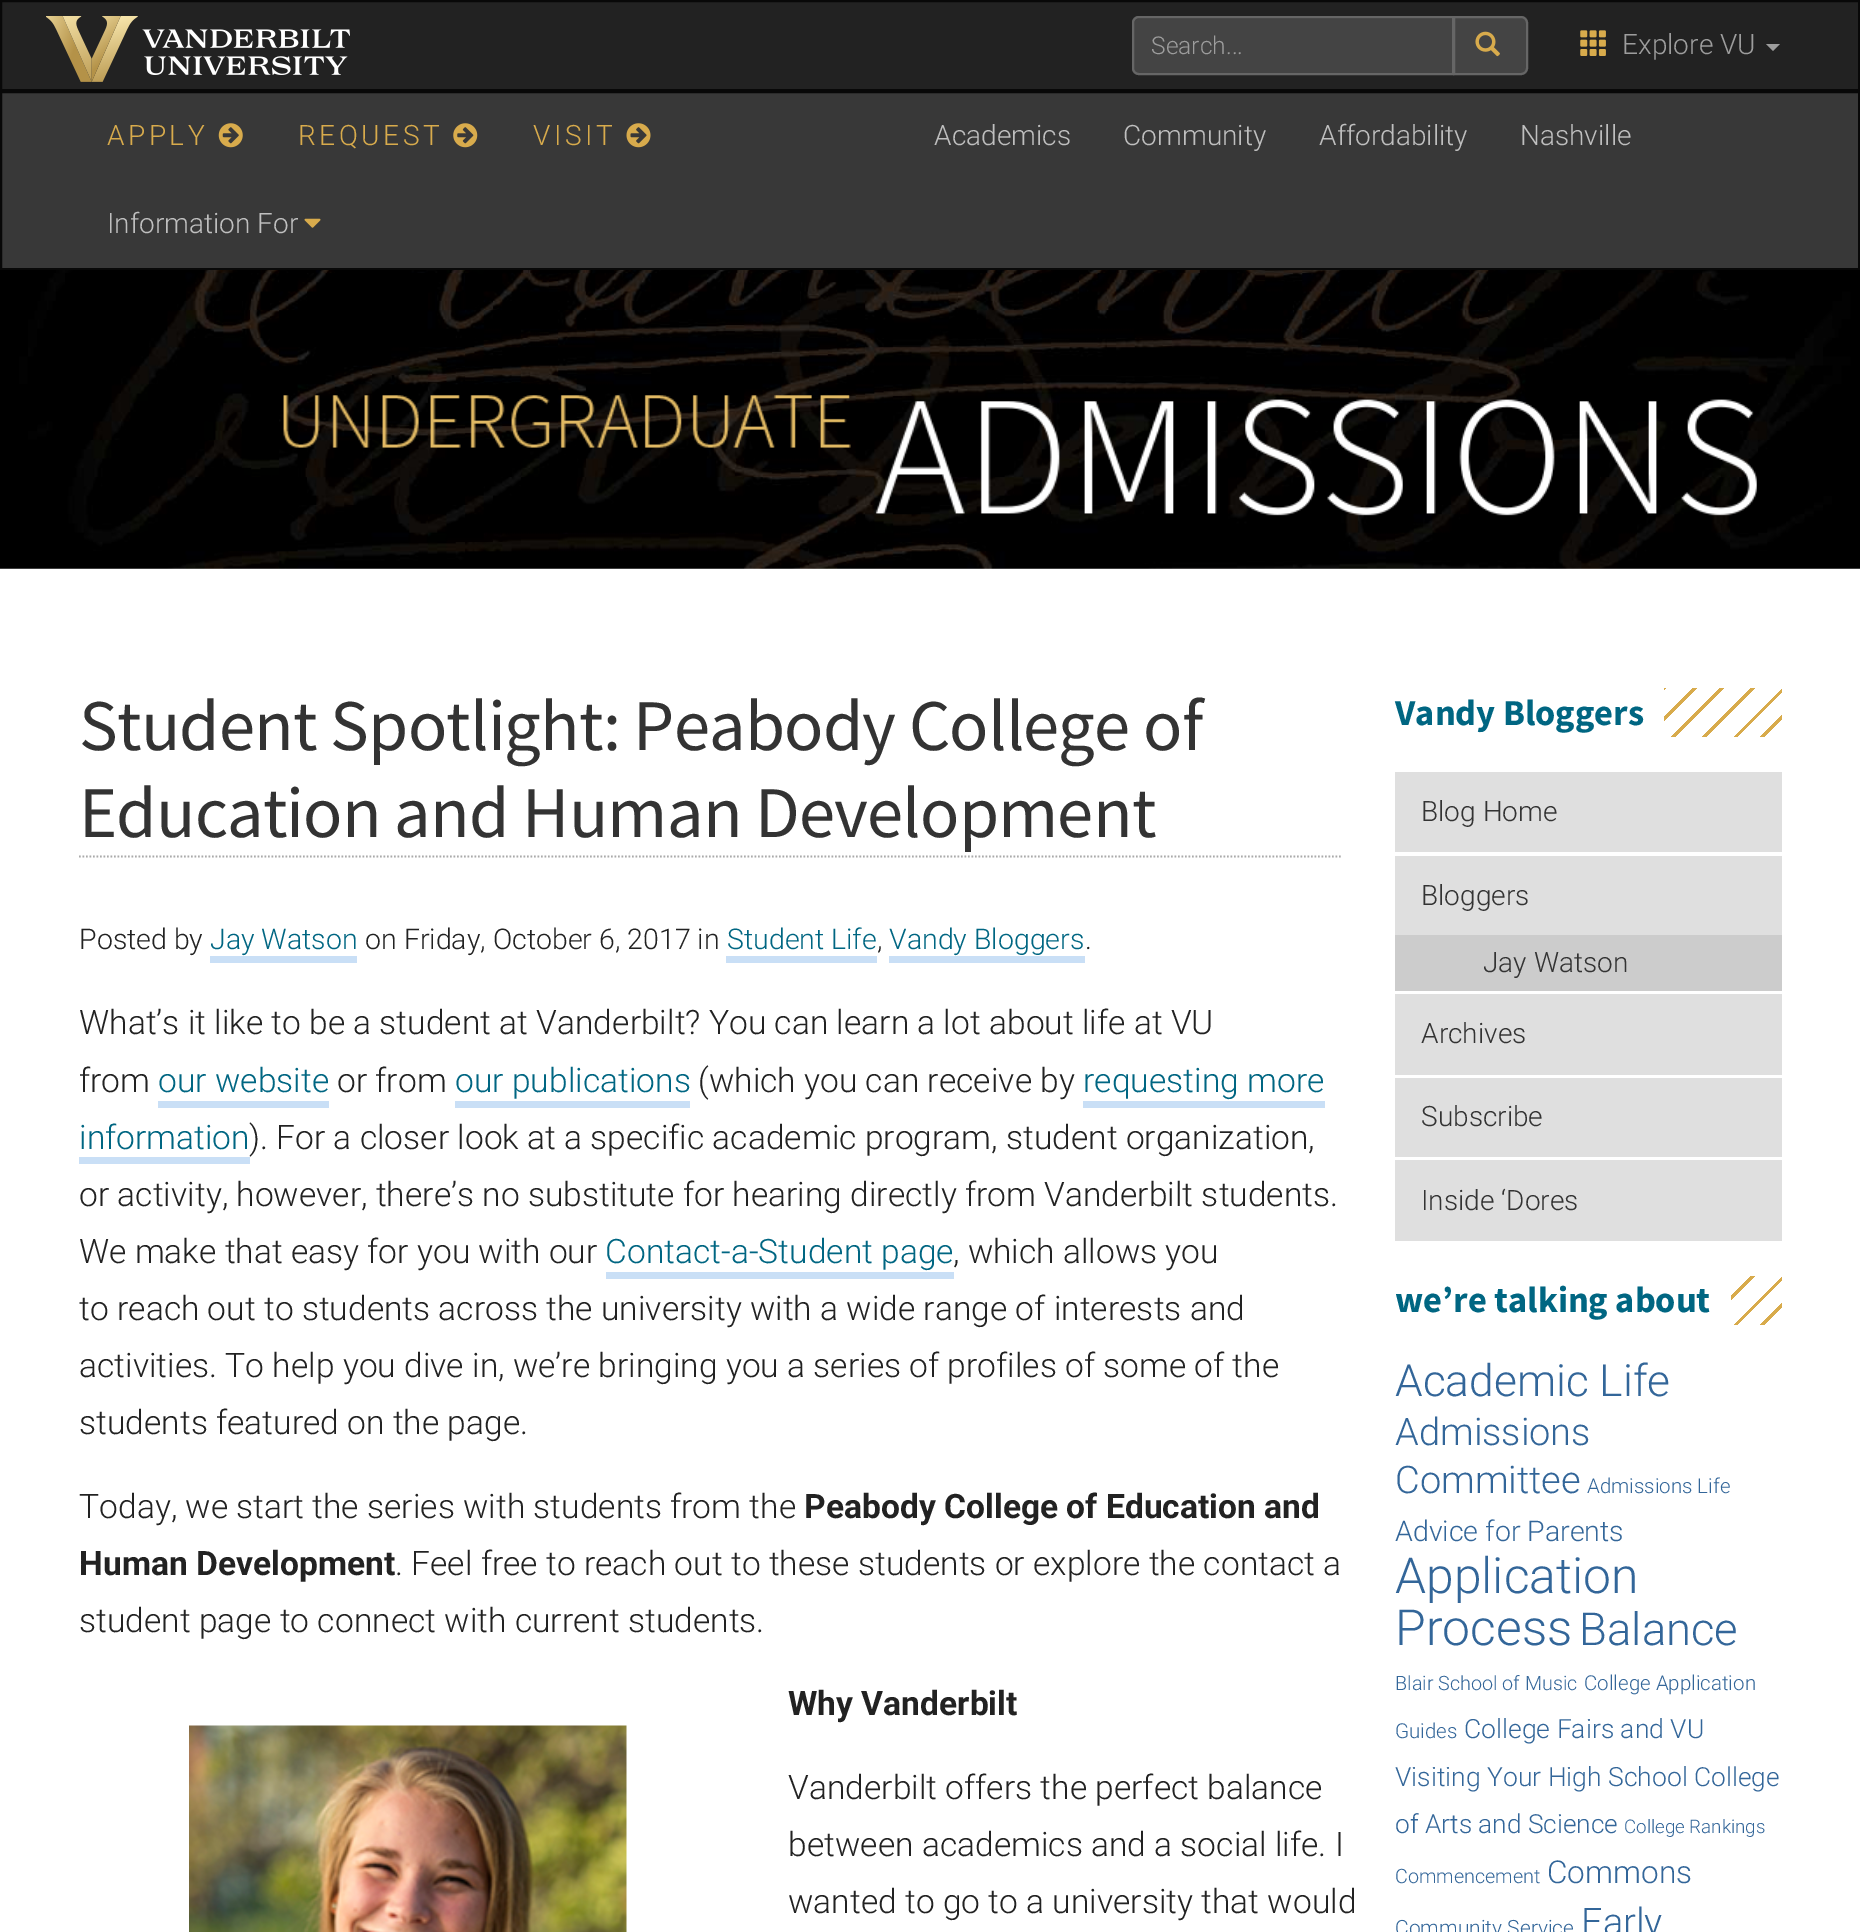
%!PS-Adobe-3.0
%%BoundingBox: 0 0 1860 1932
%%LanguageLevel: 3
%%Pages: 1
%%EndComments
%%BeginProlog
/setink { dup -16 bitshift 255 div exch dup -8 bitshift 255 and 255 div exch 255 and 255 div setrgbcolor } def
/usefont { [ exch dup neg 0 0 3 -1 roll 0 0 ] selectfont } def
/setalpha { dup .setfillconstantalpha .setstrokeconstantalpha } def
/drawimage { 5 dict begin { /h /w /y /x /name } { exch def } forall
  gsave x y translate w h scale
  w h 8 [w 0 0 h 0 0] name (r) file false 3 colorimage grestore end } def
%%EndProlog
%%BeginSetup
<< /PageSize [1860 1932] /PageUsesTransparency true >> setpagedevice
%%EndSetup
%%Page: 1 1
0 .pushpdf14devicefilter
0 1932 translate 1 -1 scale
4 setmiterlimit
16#FFFFFF setink
0 0 1860 1932 rectfill
16#222222 setink
1 1 moveto 1859 1 lineto 1859 90 lineto 1 90 lineto closepath gsave fill grestore
16#080808 setink
2 setlinewidth
stroke
(img1.raw) 46 16 304 66 drawimage
16#444444 setink
1139 16 moveto 1454 16 lineto 1454 75 lineto 1139 75 lineto 1135 75 1132 72 1132 68 curveto 1132 23 lineto 1132 19 1135 16 1139 16 curveto closepath fill
16#3F3F3F setink
1139 19 moveto 1452 19 lineto 1452 74 lineto 1453 74 lineto 1453 18 lineto 1139 18 lineto 1136 18 1134 21 1134 24 curveto 1134 22 1136 19 1139 19 curveto closepath fill
16#666666 setink
1139 17 moveto 1453 17 lineto 1453 74 lineto 1139 74 lineto 1135.5 74 1133 71.5 1133 68 curveto 1133 23 lineto 1133 19.5 1135.5 17 1139 17 curveto closepath stroke
/Roboto-Light 24.5 usefont
16#9D9D9D setink
1151 54 moveto (Search...) show
16#444444 setink
1454 17 moveto 1521 17 lineto 1524.5 17 1527 19.5 1527 23 curveto 1527 68 lineto 1527 71.5 1524.5 74 1521 74 curveto 1454 74 lineto closepath gsave fill grestore
16#666666 setink
stroke
(img2.raw) 1475 31 25 26 drawimage
(img3.raw) 1580 30 26 26 drawimage
/Roboto-Light 28 usefont
16#9D9D9D setink
1622 54 moveto (Explore VU) show
1766 44 moveto 1780 44 lineto 1773 51 lineto closepath fill
0.9 setalpha
16#222222 setink
1 92 moveto 1859 92 lineto 1859 269 lineto 1 269 lineto closepath fill
1 setalpha
16#080808 setink
1 92 moveto 1859 92 lineto 1859 269 lineto 1 269 lineto closepath stroke
16#D8AB4C setink
107 145 moveto 3.5 0 (APPLY) ashow
(img4.raw) 218 123 25 25 drawimage
298 145 moveto 3.5 0 (REQUEST) ashow
(img5.raw) 453 123 25 25 drawimage
533 145 moveto 3.5 0 (VISIT) ashow
(img6.raw) 626 123 25 25 drawimage
16#BFBFBF setink
[
    [(Academics) 934 145]
    [(Community) 1123 145]
    [(Affordability) 1319 145]
    [(Nashville) 1520 145]
    [(Information For) 107 233]
] { aload pop moveto show } forall
(img7.raw) 304 218 17 10 drawimage
(img8.raw) 0 270 1860 299 drawimage
(img9.raw) 283 395 1474 121 drawimage
16#AAAAAA setink
1.8 setlinewidth
[1.75 1.75] 0 setdash
79 856.5 moveto 1342 856.5 lineto stroke
/SourceSansPro-Regular 72.75 usefont
16#333333 setink
79 750 moveto -0.9 0 (Student Spotlight: Peabody College of) ashow
79 837 moveto -0.9 0 (Education and Human Development) ashow
/Roboto-Light 28.5 usefont
16#222222 setink
79 949 moveto (Posted by) show
16#006682 setink
210 949 moveto (Jay Watson) show
16#C9DFF6 setink
210 956 147 7 rectfill
16#222222 setink
365 949 moveto (on Friday, October 6, 2017 in) show
16#006682 setink
727 949 moveto (Student Life) show
16#222222 setink
877 949 moveto (,) show
16#C9DFF6 setink
726 956 151 7 rectfill
16#006682 setink
889 949 moveto (Vandy Bloggers) show
16#222222 setink
1085 949 moveto (.) show
16#C9DFF6 setink
889 956 196 7 rectfill
/Roboto-Light 33.6 usefont
16#222222 setink
79 1034 moveto (What’s it like to be a student at Vanderbilt? You can learn a lot about life at VU) show
79 1092 moveto (from) show
16#006682 setink
158 1092 moveto (our website) show
16#C9DFF6 setink
158 1101 171 7 rectfill
16#222222 setink
337 1092 moveto (or from) show
16#006682 setink
455 1092 moveto (our publications) show
16#C9DFF6 setink
455 1101 235 7 rectfill
16#222222 setink
698 1092 moveto (\(which you can receive by) show
16#006682 setink
1083 1092 moveto (requesting more) show
16#C9DFF6 setink
1083 1101 242 7 rectfill
16#006682 setink
79 1149 moveto (information) show
16#C9DFF6 setink
79 1157 171 7 rectfill
16#222222 setink
[
    [(\). For a closer look at a specific academic program, student organization,) 249 1149]
    [(or activity, however, there’s no substitute for hearing directly from Vanderbilt students.) 79 1206]
    [(We make that easy for you with our) 79 1263]
] { aload pop moveto show } forall
16#006682 setink
605 1263 moveto (Contact-a-Student page) show
16#C9DFF6 setink
606 1272 348 7 rectfill
16#222222 setink
[
    [(, which allows you) 953 1263]
    [(to reach out to students across the university with a wide range of interests and) 79 1320]
    [(activities. To help you dive in, we’re bringing you a series of profiles of some of the) 79 1377]
    [(students featured on the page.) 79 1434]
    [(Today, we start the series with students from the) 79 1518]
] { aload pop moveto show } forall
/Roboto-Bold 33.6 usefont
804 1518 moveto (Peabody College of Education and) show
79 1575 moveto (Human Development) show
/Roboto-Light 33.6 usefont
395 1575 moveto (. Feel free to reach out to these students or explore the contact a) show
79 1632 moveto (student page to connect with current students.) show
(img10.raw) 189 1725 438 207 drawimage
/Roboto-Bold 33.6 usefont
788 1715 moveto (Why Vanderbilt) show
/Roboto-Light 33.6 usefont
[
    [(Vanderbilt offers the perfect balance) 788 1799]
    [(between academics and a social life. I) 788 1856]
    [(wanted to go to a university that would) 788 1913]
] { aload pop moveto show } forall
gsave 1664 688 moveto 1782 688 lineto 1782 737 lineto 1664 737 lineto closepath clip newpath
<< /ShadingType 2 /ColorSpace /DeviceRGB /Coords [1479 603 1702 826] /Extend [true true] /Function << /FunctionType 3 /Domain [0 1] /Functions [<< /FunctionType 2 /Domain [0 1] /C0 [0.847 0.671 0.298] /C1 [0.847 0.671 0.298] /N 1 >> << /FunctionType 2 /Domain [0 1] /C0 [1 1 1] /C1 [1 1 1] /N 1 >> << /FunctionType 2 /Domain [0 1] /C0 [0.847 0.671 0.298] /C1 [0.847 0.671 0.298] /N 1 >> << /FunctionType 2 /Domain [0 1] /C0 [1 1 1] /C1 [1 1 1] /N 1 >> << /FunctionType 2 /Domain [0 1] /C0 [0.847 0.671 0.298] /C1 [0.847 0.671 0.298] /N 1 >> << /FunctionType 2 /Domain [0 1] /C0 [1 1 1] /C1 [1 1 1] /N 1 >> << /FunctionType 2 /Domain [0 1] /C0 [0.847 0.671 0.298] /C1 [0.847 0.671 0.298] /N 1 >> << /FunctionType 2 /Domain [0 1] /C0 [1 1 1] /C1 [1 1 1] /N 1 >> << /FunctionType 2 /Domain [0 1] /C0 [0.847 0.671 0.298] /C1 [0.847 0.671 0.298] /N 1 >> << /FunctionType 2 /Domain [0 1] /C0 [1 1 1] /C1 [1 1 1] /N 1 >> << /FunctionType 2 /Domain [0 1] /C0 [0.847 0.671 0.298] /C1 [0.847 0.671 0.298] /N 1 >> << /FunctionType 2 /Domain [0 1] /C0 [1 1 1] /C1 [1 1 1] /N 1 >> << /FunctionType 2 /Domain [0 1] /C0 [0.847 0.671 0.298] /C1 [0.847 0.671 0.298] /N 1 >> << /FunctionType 2 /Domain [0 1] /C0 [1 1 1] /C1 [1 1 1] /N 1 >> << /FunctionType 2 /Domain [0 1] /C0 [0.847 0.671 0.298] /C1 [0.847 0.671 0.298] /N 1 >> << /FunctionType 2 /Domain [0 1] /C0 [1 1 1] /C1 [1 1 1] /N 1 >> << /FunctionType 2 /Domain [0 1] /C0 [0.847 0.671 0.298] /C1 [0.847 0.671 0.298] /N 1 >> << /FunctionType 2 /Domain [0 1] /C0 [1 1 1] /C1 [1 1 1] /N 1 >> << /FunctionType 2 /Domain [0 1] /C0 [0.847 0.671 0.298] /C1 [0.847 0.671 0.298] /N 1 >> << /FunctionType 2 /Domain [0 1] /C0 [1 1 1] /C1 [1 1 1] /N 1 >> << /FunctionType 2 /Domain [0 1] /C0 [0.847 0.671 0.298] /C1 [0.847 0.671 0.298] /N 1 >> << /FunctionType 2 /Domain [0 1] /C0 [1 1 1] /C1 [1 1 1] /N 1 >> << /FunctionType 2 /Domain [0 1] /C0 [0.847 0.671 0.298] /C1 [0.847 0.671 0.298] /N 1 >> << /FunctionType 2 /Domain [0 1] /C0 [1 1 1] /C1 [1 1 1] /N 1 >> << /FunctionType 2 /Domain [0 1] /C0 [0.847 0.671 0.298] /C1 [0.847 0.671 0.298] /N 1 >> << /FunctionType 2 /Domain [0 1] /C0 [1 1 1] /C1 [1 1 1] /N 1 >> << /FunctionType 2 /Domain [0 1] /C0 [0.847 0.671 0.298] /C1 [0.847 0.671 0.298] /N 1 >> << /FunctionType 2 /Domain [0 1] /C0 [1 1 1] /C1 [1 1 1] /N 1 >> << /FunctionType 2 /Domain [0 1] /C0 [0.847 0.671 0.298] /C1 [0.847 0.671 0.298] /N 1 >> << /FunctionType 2 /Domain [0 1] /C0 [1 1 1] /C1 [1 1 1] /N 1 >>] /Bounds [0.01 0.07 0.08 0.13 0.14 0.2 0.21 0.27 0.28 0.33 0.34 0.4 0.41 0.47 0.48 0.53 0.54 0.6 0.61 0.67 0.68 0.73 0.74 0.8 0.81 0.87 0.88 0.93 0.94] /Encode [0 1 0 1 0 1 0 1 0 1 0 1 0 1 0 1 0 1 0 1 0 1 0 1 0 1 0 1 0 1 0 1 0 1 0 1 0 1 0 1 0 1 0 1 0 1 0 1 0 1 0 1 0 1 0 1 0 1 0 1] >> >> shfill grestore
/SourceSansPro-Bold 36.5 usefont
16#006682 setink
1395 725 moveto (Vandy Bloggers) show
16#DFDFDF setink
1395 772 387 80 rectfill
/Roboto-Light 28 usefont
16#333333 setink
1421 821 moveto (Blog Home) show
16#DFDFDF setink
1395 856 387 79 rectfill
16#333333 setink
1421 905 moveto (Bloggers) show
16#CCCCCC setink
1395 935 387 56 rectfill
16#333333 setink
1483 972 moveto (Jay Watson) show
16#DFDFDF setink
1395 994 387 81 rectfill
16#333333 setink
1421 1043 moveto (Archives) show
16#DFDFDF setink
1395 1078 387 79 rectfill
16#333333 setink
1421 1126 moveto (Subscribe) show
16#DFDFDF setink
1395 1160 387 81 rectfill
16#333333 setink
1421 1210 moveto (Inside ‘Dores) show
gsave 1731 1276 moveto 1782 1276 lineto 1782 1325 lineto 1731 1325 lineto closepath clip newpath
<< /ShadingType 2 /ColorSpace /DeviceRGB /Coords [1479 1191 1702 1414] /Extend [true true] /Function << /FunctionType 3 /Domain [0 1] /Functions [<< /FunctionType 2 /Domain [0 1] /C0 [0.847 0.671 0.298] /C1 [0.847 0.671 0.298] /N 1 >> << /FunctionType 2 /Domain [0 1] /C0 [1 1 1] /C1 [1 1 1] /N 1 >> << /FunctionType 2 /Domain [0 1] /C0 [0.847 0.671 0.298] /C1 [0.847 0.671 0.298] /N 1 >> << /FunctionType 2 /Domain [0 1] /C0 [1 1 1] /C1 [1 1 1] /N 1 >> << /FunctionType 2 /Domain [0 1] /C0 [0.847 0.671 0.298] /C1 [0.847 0.671 0.298] /N 1 >> << /FunctionType 2 /Domain [0 1] /C0 [1 1 1] /C1 [1 1 1] /N 1 >> << /FunctionType 2 /Domain [0 1] /C0 [0.847 0.671 0.298] /C1 [0.847 0.671 0.298] /N 1 >> << /FunctionType 2 /Domain [0 1] /C0 [1 1 1] /C1 [1 1 1] /N 1 >> << /FunctionType 2 /Domain [0 1] /C0 [0.847 0.671 0.298] /C1 [0.847 0.671 0.298] /N 1 >> << /FunctionType 2 /Domain [0 1] /C0 [1 1 1] /C1 [1 1 1] /N 1 >> << /FunctionType 2 /Domain [0 1] /C0 [0.847 0.671 0.298] /C1 [0.847 0.671 0.298] /N 1 >> << /FunctionType 2 /Domain [0 1] /C0 [1 1 1] /C1 [1 1 1] /N 1 >> << /FunctionType 2 /Domain [0 1] /C0 [0.847 0.671 0.298] /C1 [0.847 0.671 0.298] /N 1 >> << /FunctionType 2 /Domain [0 1] /C0 [1 1 1] /C1 [1 1 1] /N 1 >> << /FunctionType 2 /Domain [0 1] /C0 [0.847 0.671 0.298] /C1 [0.847 0.671 0.298] /N 1 >> << /FunctionType 2 /Domain [0 1] /C0 [1 1 1] /C1 [1 1 1] /N 1 >> << /FunctionType 2 /Domain [0 1] /C0 [0.847 0.671 0.298] /C1 [0.847 0.671 0.298] /N 1 >> << /FunctionType 2 /Domain [0 1] /C0 [1 1 1] /C1 [1 1 1] /N 1 >> << /FunctionType 2 /Domain [0 1] /C0 [0.847 0.671 0.298] /C1 [0.847 0.671 0.298] /N 1 >> << /FunctionType 2 /Domain [0 1] /C0 [1 1 1] /C1 [1 1 1] /N 1 >> << /FunctionType 2 /Domain [0 1] /C0 [0.847 0.671 0.298] /C1 [0.847 0.671 0.298] /N 1 >> << /FunctionType 2 /Domain [0 1] /C0 [1 1 1] /C1 [1 1 1] /N 1 >> << /FunctionType 2 /Domain [0 1] /C0 [0.847 0.671 0.298] /C1 [0.847 0.671 0.298] /N 1 >> << /FunctionType 2 /Domain [0 1] /C0 [1 1 1] /C1 [1 1 1] /N 1 >> << /FunctionType 2 /Domain [0 1] /C0 [0.847 0.671 0.298] /C1 [0.847 0.671 0.298] /N 1 >> << /FunctionType 2 /Domain [0 1] /C0 [1 1 1] /C1 [1 1 1] /N 1 >> << /FunctionType 2 /Domain [0 1] /C0 [0.847 0.671 0.298] /C1 [0.847 0.671 0.298] /N 1 >> << /FunctionType 2 /Domain [0 1] /C0 [1 1 1] /C1 [1 1 1] /N 1 >> << /FunctionType 2 /Domain [0 1] /C0 [0.847 0.671 0.298] /C1 [0.847 0.671 0.298] /N 1 >> << /FunctionType 2 /Domain [0 1] /C0 [1 1 1] /C1 [1 1 1] /N 1 >>] /Bounds [0.01 0.07 0.08 0.13 0.14 0.2 0.21 0.27 0.28 0.33 0.34 0.4 0.41 0.47 0.48 0.53 0.54 0.6 0.61 0.67 0.68 0.73 0.74 0.8 0.81 0.87 0.88 0.93 0.94] /Encode [0 1 0 1 0 1 0 1 0 1 0 1 0 1 0 1 0 1 0 1 0 1 0 1 0 1 0 1 0 1 0 1 0 1 0 1 0 1 0 1 0 1 0 1 0 1 0 1 0 1 0 1 0 1 0 1 0 1 0 1] >> >> shfill grestore
/SourceSansPro-Bold 36.5 usefont
16#006682 setink
1395 1312 moveto (we’re talking about) show
/Roboto-Light 44.25 usefont
16#336699 setink
1395 1396 moveto (Academic Life) show
/Roboto-Light 38 usefont
1395 1445 moveto (Admissions) show
1395 1493 moveto (Committee) show
/Roboto-Light 20.5 usefont
1587 1493 moveto (Admissions Life) show
/Roboto-Light 28.5 usefont
1395 1541 moveto (Advice for Parents) show
/Roboto-Light 49.75 usefont
1395 1593 moveto (Application) show
1395 1645 moveto (Process) show
/Roboto-Light 45.5 usefont
1579 1645 moveto (Balance) show
/Roboto-Light 19.75 usefont
1395 1690 moveto (Blair School of Music) show
/Roboto-Light 20.5 usefont
1584 1690 moveto (College Application) show
1395 1738 moveto (Guides) show
/Roboto-Light 26.5 usefont
1464 1738 moveto (College Fairs and VU) show
1395 1786 moveto (Visiting Your High School) show
/Roboto-Light 26.25 usefont
1694 1786 moveto (College) show
1395 1833 moveto (of Arts and Science) show
/Roboto-Light 18.75 usefont
1624 1833 moveto (College Rankings) show
/Roboto-Light 19.75 usefont
1395 1883 moveto (Commencement) show
/Roboto-Light 31.5 usefont
1547 1883 moveto (Commons) show
/Roboto-Light 21 usefont
1395 1935 moveto (Community Service) show
/Roboto-Light 38 usefont
1581 1935 moveto (Early) show
.poppdf14devicefilter showpage
%%EOF
